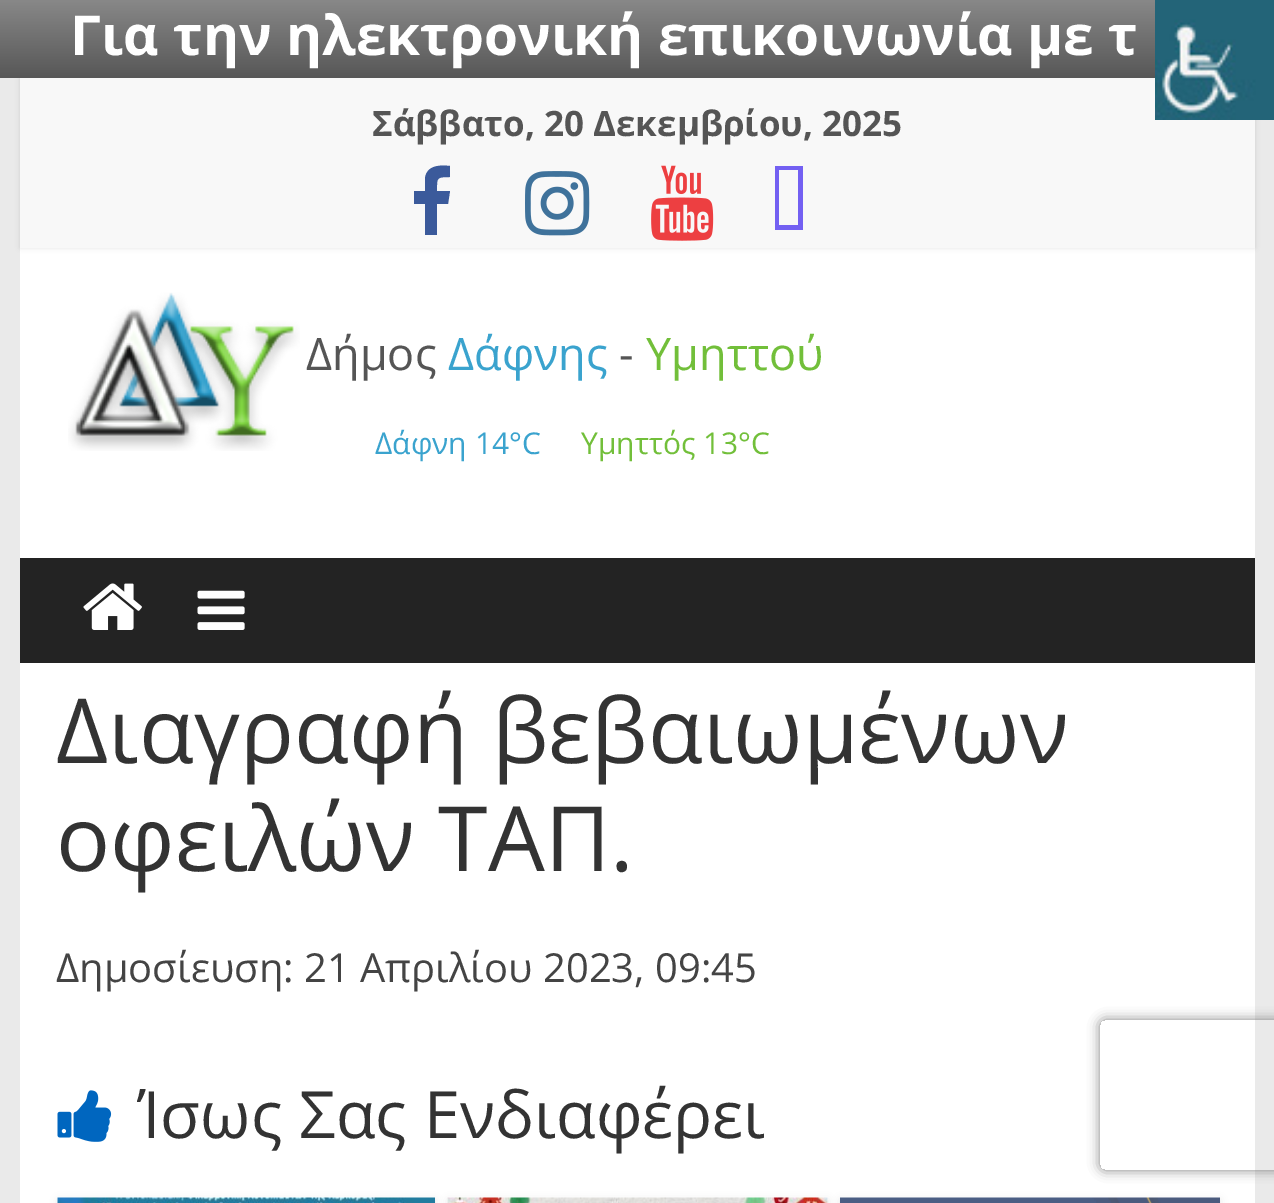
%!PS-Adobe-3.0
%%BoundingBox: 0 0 1274 1203
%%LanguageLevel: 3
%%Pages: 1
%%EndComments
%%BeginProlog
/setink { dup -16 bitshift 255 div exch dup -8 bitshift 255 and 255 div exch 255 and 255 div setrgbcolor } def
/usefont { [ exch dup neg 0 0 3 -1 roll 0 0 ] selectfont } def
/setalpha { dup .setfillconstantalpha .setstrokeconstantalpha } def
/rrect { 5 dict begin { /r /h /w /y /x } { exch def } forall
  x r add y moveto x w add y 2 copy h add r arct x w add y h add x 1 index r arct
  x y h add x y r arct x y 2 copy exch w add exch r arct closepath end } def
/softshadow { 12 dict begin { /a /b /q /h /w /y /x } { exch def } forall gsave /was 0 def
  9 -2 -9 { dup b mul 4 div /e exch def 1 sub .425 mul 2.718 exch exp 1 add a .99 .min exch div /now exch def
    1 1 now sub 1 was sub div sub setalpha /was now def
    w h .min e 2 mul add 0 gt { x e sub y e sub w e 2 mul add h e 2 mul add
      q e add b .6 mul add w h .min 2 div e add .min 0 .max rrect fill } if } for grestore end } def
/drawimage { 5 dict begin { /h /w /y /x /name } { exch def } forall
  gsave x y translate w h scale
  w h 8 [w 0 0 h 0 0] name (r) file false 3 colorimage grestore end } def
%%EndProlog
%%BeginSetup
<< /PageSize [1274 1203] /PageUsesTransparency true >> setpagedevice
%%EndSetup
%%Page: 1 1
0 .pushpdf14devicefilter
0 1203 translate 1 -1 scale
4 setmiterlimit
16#EAEAEA setink
0 0 1274 1203 rectfill
16#FFFFFF setink
20 248 1235 310 rectfill
16#000000 setink
20 78 1235 170 0 2.5 0.1 softshadow
gsave 0 0 moveto 1155 0 lineto 1155 78 lineto 0 78 lineto closepath clip newpath
<< /ShadingType 2 /ColorSpace /DeviceRGB /Coords [638 0 638 215] /Extend [true true] /Function << /FunctionType 2 /Domain [0 1] /C0 [0.533 0.533 0.533] /C1 [0 0 0] /N 1 >> >> shfill grestore
/OpenSans-Bold 55 usefont
16#FFFFFF setink
70 55 moveto (Για την ηλεκτρονική επικοινωνία με τ) show
16#F8F8F8 setink
20 78 1235 170 rectfill
(img1.raw) 1155 0 119 120 drawimage
/OpenSans-Bold 35 usefont
16#555555 setink
372 136 moveto (Σάββατο, 20 Δεκεμβρίου, 2025) show
16#3B5A9B setink
450 166 moveto 450 177 lineto 436 177 437 178 437 191 curveto 450 191 lineto 448 204 lineto 437 204 lineto 437 235 lineto 425 235 lineto 425 204 lineto 414 204 lineto 414 191 lineto 425 191 lineto 425 178 lineto 427 165 440 165 450 166 curveto closepath fill
(img2.raw) 525 171 65 65 drawimage
(img3.raw) 651 165 63 76 drawimage
16#7360F2 setink
779 225 moveto 798 225 lineto 798 170 lineto 779 170 lineto closepath 775 230 moveto 775 166 lineto 803 166 lineto 803 230 lineto closepath fill
(img4.raw) 68 292 232 159 drawimage
/OpenSans-Regular 45 usefont
16#555555 setink
306 370 moveto (Δήμος) show
16#3AA3CE setink
448 370 moveto (Δάφνης) show
16#555555 setink
619 370 moveto (-) show
16#72BF3A setink
646 370 moveto (Υμηττού) show
/OpenSans-Regular 30 usefont
16#3AA3CE setink
375 454 moveto (Δάφνη 14°C) show
16#72BF3A setink
581 454 moveto (Υμηττός 13°C) show
16#232323 setink
20 558 1235 105 rectfill
(img5.raw) 83 583 59 47 drawimage
(img6.raw) 197 590 48 40 drawimage
16#FFFFFF setink
20 663 1235 540 rectfill
/OpenSans-Regular 90 usefont
16#333333 setink
56 763 moveto (Διαγραφή βεβαιωμένων) show
56 871 moveto (οφειλών ΤΑΠ.) show
/OpenSans-Regular 40 usefont
16#444444 setink
56 982 moveto (Δημοσίευση: 21 Απριλίου 2023, 09:45) show
(img7.raw) 57 1090 55 52 drawimage
/OpenSans-Regular 65 usefont
16#333333 setink
137 1138 moveto (Ίσως Σας Ενδιαφέρει) show
16#000000 setink
58 1200 377 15 0 4 0.1 softshadow
(img8.raw) 57 1197 378 6 drawimage
448 1200 380 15 0 4 0.1 softshadow
(img9.raw) 447 1197 381 6 drawimage
840 1200 380 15 0 4 0.1 softshadow
(img10.raw) 840 1197 380 6 drawimage
gsave
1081 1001 moveto 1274 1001 lineto 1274 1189 lineto 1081 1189 lineto closepath 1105 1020 moveto 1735 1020 lineto 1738 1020 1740 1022 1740 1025 curveto 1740 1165 lineto 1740 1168 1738 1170 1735 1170 curveto 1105 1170 lineto 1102 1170 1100 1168 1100 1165 curveto 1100 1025 lineto 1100 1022 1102 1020 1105 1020 curveto closepath eoclip newpath
16#808080 setink
1100 1020 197 150 5 6 1 softshadow
grestore
.poppdf14devicefilter showpage
%%EOF
